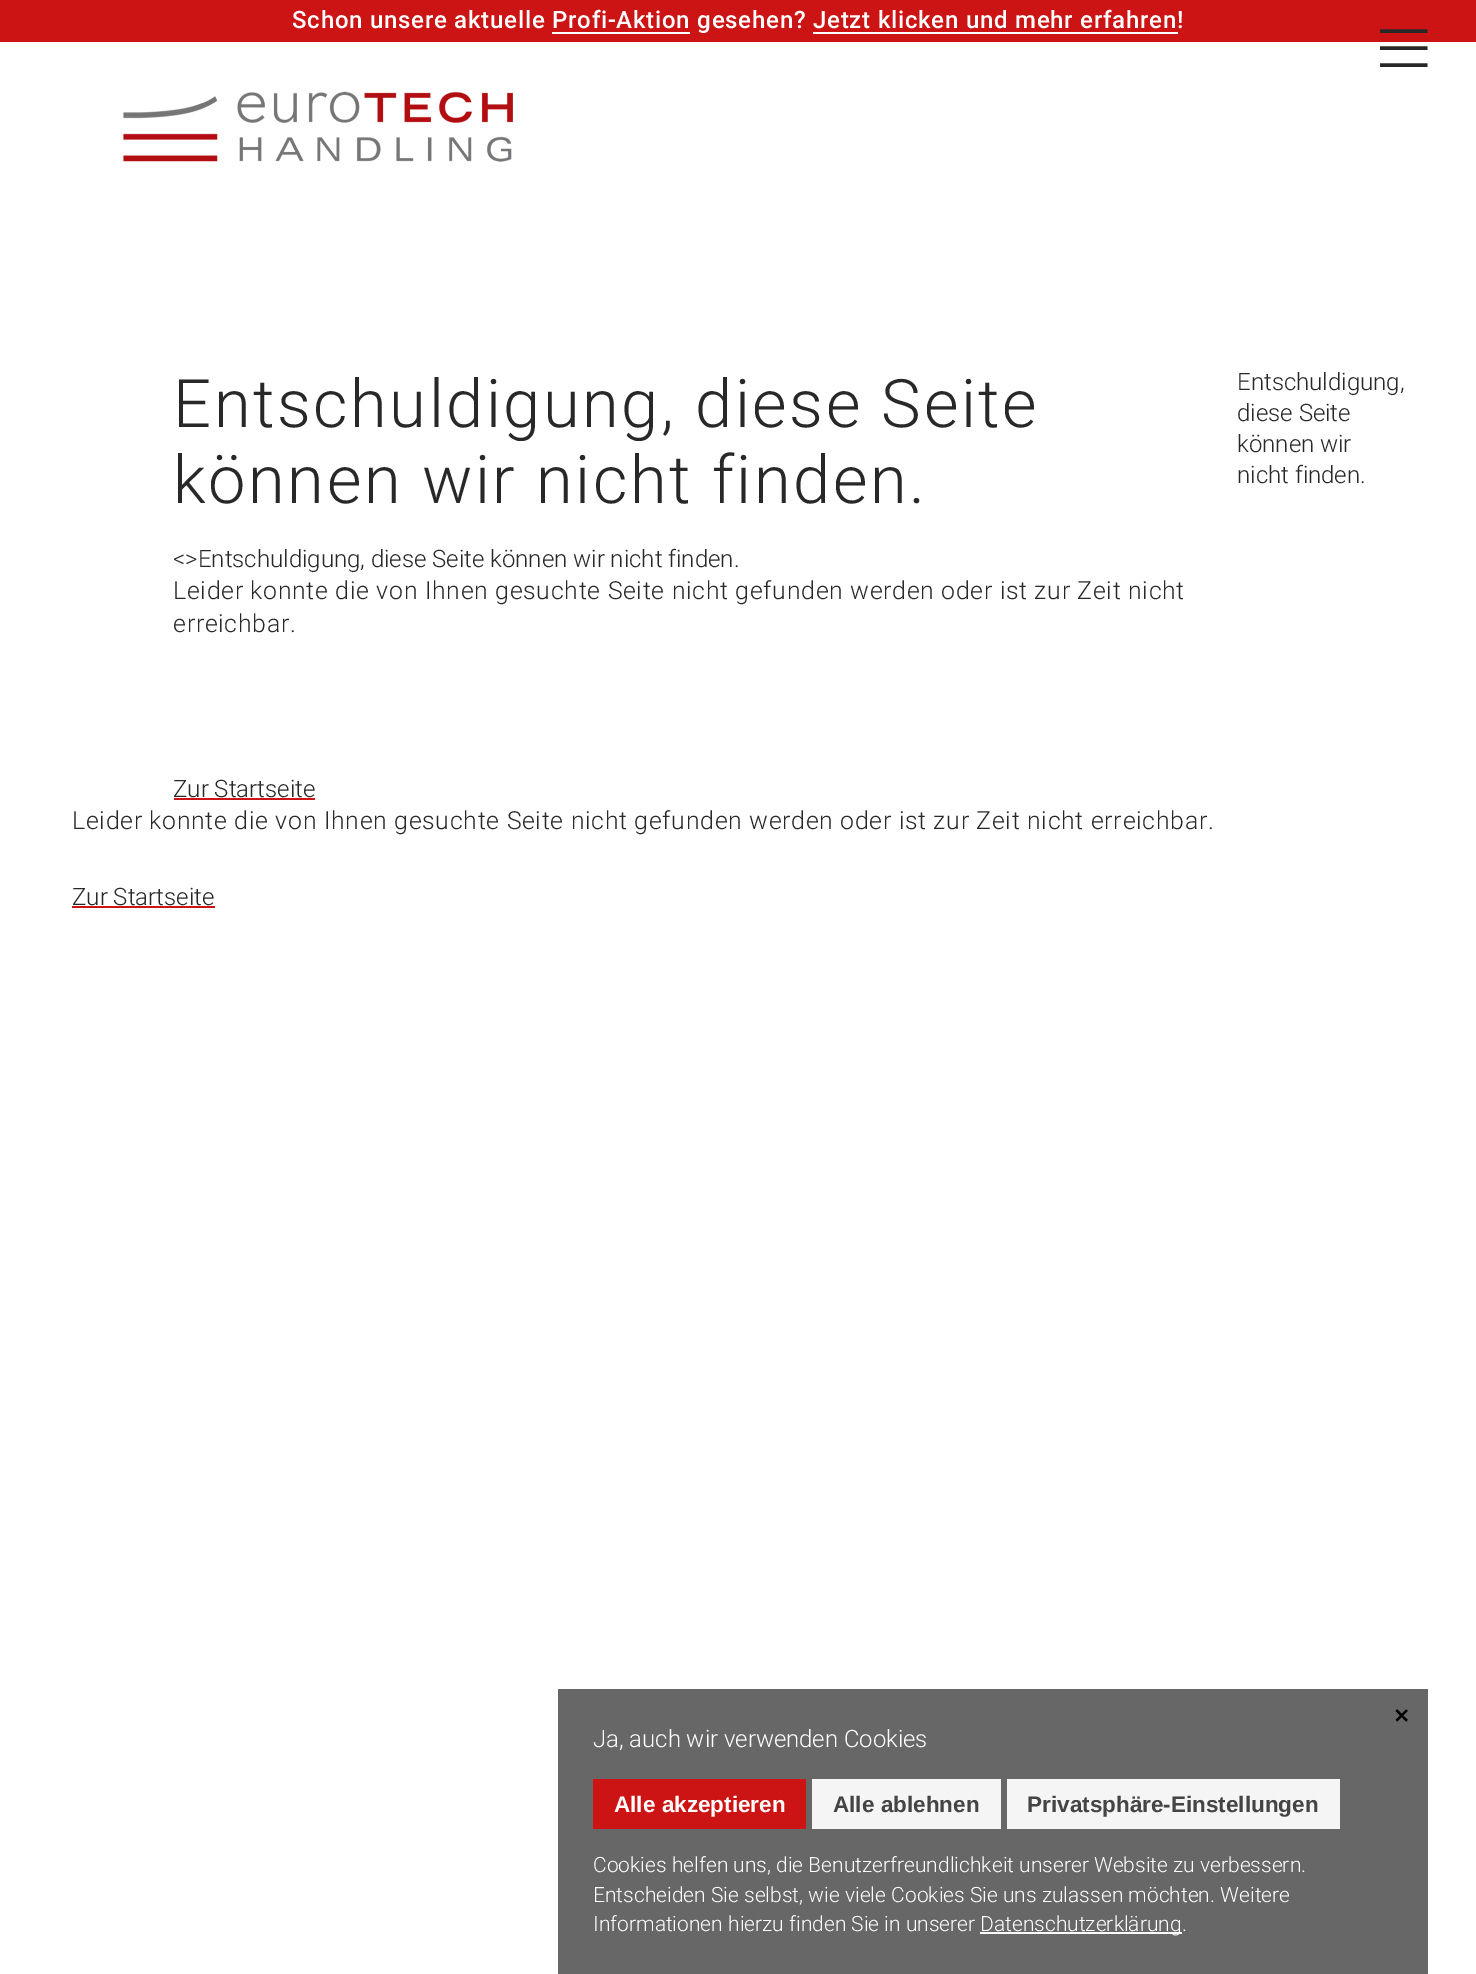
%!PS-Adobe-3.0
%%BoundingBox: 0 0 1476 1974
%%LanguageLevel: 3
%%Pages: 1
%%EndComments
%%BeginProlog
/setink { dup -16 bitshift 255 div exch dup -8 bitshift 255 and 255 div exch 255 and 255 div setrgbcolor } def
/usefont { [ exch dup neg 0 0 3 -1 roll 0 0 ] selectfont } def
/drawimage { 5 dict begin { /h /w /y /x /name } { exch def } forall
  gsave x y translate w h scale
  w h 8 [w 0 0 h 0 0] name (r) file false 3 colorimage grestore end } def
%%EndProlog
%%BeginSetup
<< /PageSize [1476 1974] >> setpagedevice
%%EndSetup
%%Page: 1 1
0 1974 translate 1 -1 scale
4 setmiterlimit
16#FFFFFF setink
0 0 1476 1974 rectfill
16#CD1414 setink
0 0 1476 42 rectfill
/Roboto-Medium 24 usefont
16#FFFFFF setink
292 28 moveto 0.75 0 (Schon unsere aktuelle Profi-Aktion gesehen? Jetzt klicken und mehr erfahren!) ashow
552 32 138 2 rectfill
813 32 365 2 rectfill
16#282828 setink
3.4 setlinewidth
1380 31 moveto 1427.5 31 lineto 1380 48 moveto 1427.5 48 lineto 1380 65 moveto 1427.5 65 lineto stroke
(img1.raw) 123 91 390 71 drawimage
/Roboto-Light 66.8 usefont
173 427 moveto 2.55 0 (Entschuldigung, diese Seite) ashow
173 503 moveto 2.55 0 (können wir nicht finden.) ashow
/Roboto-Light 24 usefont
173 567 moveto (<>Entschuldigung, diese Seite können wir nicht finden.) show
/Roboto-Light 24.85 usefont
173 599 moveto 0.69 0 (Leider konnte die von Ihnen gesuchte Seite nicht gefunden werden oder ist zur Zeit nicht) ashow
173 632 moveto 0.69 0 (erreichbar.) ashow
/Roboto-Light 24 usefont
173 797 moveto (Zur Startseite) show
16#CD1414 setink
174 798 141 2 rectfill
16#282828 setink
[
    [(Entschuldigung,) 1237 390]
    [(diese Seite) 1237 421]
    [(können wir) 1237 452]
    [(nicht finden.) 1237 483]
] { aload pop moveto show } forall
/Roboto-Light 24.85 usefont
72 829 moveto 0.69 0 (Leider konnte die von Ihnen gesuchte Seite nicht gefunden werden oder ist zur Zeit nicht erreichbar.) ashow
/Roboto-Light 24 usefont
72 905 moveto (Zur Startseite) show
16#CD1414 setink
72 906 143 2 rectfill
16#686767 setink
558 1689 870 285 rectfill
/DejaVuSans-Bold 20 usefont
16#000000 setink
1393 1723 moveto (✕) show
/Roboto-Light 23.9 usefont
16#FFFFFF setink
593 1747 moveto (Ja, auch wir verwenden Cookies) show
16#CD1414 setink
593 1779 213 50 rectfill
/LiberationSans-Bold 22.5 usefont
16#FFFFFF setink
614 1812 moveto (Alle akzeptieren) show
16#F5F5F5 setink
812 1779 189 50 rectfill
16#444444 setink
833 1812 moveto (Alle ablehnen) show
16#F5F5F5 setink
1007 1779 333 50 rectfill
16#444444 setink
1027 1812 moveto (Privatsphäre-Einstellungen) show
/Roboto-Light 21 usefont
16#FFFFFF setink
[
    [(Cookies helfen uns, die Benutzerfreundlichkeit unserer Website zu verbessern.) 593 1872]
    [(Entscheiden Sie selbst, wie viele Cookies Sie uns zulassen möchten. Weitere) 593 1902]
    [(Informationen hierzu finden Sie in unserer) 593 1931]
] { aload pop moveto show } forall
980 1932 202 2 rectfill
980 1931 moveto (Datenschutzerklärung.) show
showpage
%%EOF
